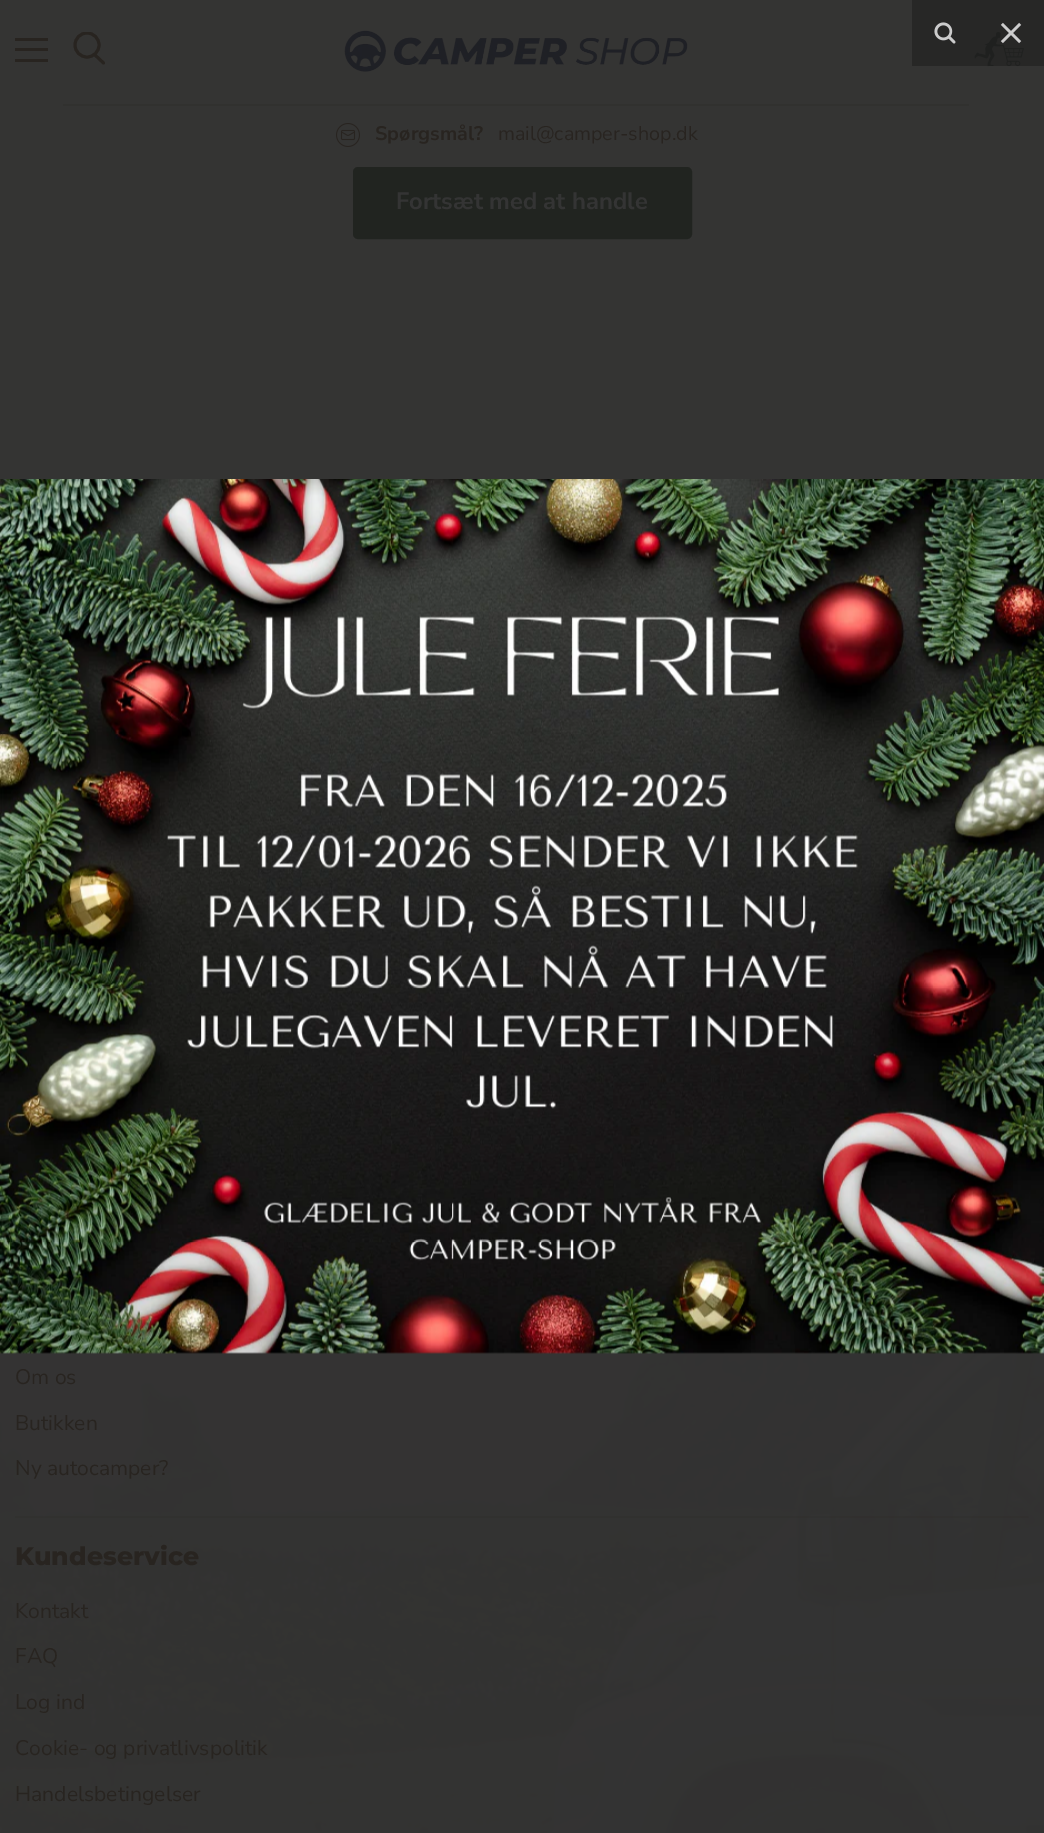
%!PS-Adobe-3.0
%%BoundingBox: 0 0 1044 1833
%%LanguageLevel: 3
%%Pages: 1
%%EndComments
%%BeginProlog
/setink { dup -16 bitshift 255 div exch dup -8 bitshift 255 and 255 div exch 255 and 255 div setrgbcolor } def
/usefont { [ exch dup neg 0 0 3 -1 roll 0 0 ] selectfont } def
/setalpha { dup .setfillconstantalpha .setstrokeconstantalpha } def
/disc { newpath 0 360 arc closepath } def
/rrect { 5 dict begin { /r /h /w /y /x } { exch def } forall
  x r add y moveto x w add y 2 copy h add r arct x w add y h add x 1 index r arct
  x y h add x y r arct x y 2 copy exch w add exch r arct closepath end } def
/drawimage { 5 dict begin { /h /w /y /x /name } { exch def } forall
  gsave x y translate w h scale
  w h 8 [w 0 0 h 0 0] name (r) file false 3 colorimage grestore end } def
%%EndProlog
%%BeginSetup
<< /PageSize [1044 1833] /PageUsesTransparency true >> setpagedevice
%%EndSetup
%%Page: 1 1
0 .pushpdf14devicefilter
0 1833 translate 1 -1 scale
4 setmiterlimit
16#343433 setink
0 0 1044 1833 rectfill
(img4.raw) 974 32 50 35 drawimage
0.6 setalpha
16#1E1E1E setink
912 0 66 66 rectfill
1 setalpha
(img1.raw) 934 22 22 22 drawimage
0.6 setalpha
978 0 66 66 rectfill
1 setalpha
(img2.raw) 1000 22 22 22 drawimage
(img7.raw) 0 1352 1044 481 drawimage
(img3.raw) 0 479 1044 875 drawimage
[
    [15 38 33 3 16#282420]
    [15 48 33 3 16#282420]
    [15 59 33 3 16#282420]
] { aload pop setink rectfill } forall
3 setlinewidth
1 setlinecap
103.5 63 moveto 95 55 lineto stroke
gsave
72 32 35 36 rectclip
0 setlinecap
87 45 12 disc stroke
grestore
(img5.raw) 344 30 344 42 drawimage
16#31312F setink
63 104 906 2 rectfill
(img6.raw) 336 123 24 24 drawimage
/NunitoSans-Bold 19.75 usefont
16#282420 setink
375 140 moveto (Spørgsmål?) show
/NunitoSans-Regular 19.75 usefont
498 140 moveto (mail@camper-shop.dk) show
16#212420 setink
354 168 337 70 4 rrect gsave fill grestore
2 setlinewidth
0 setlinecap
stroke
/NunitoSans-Bold 23.75 usefont
16#343434 setink
396 209 moveto (Fortsæt med at handle) show
0.15 setalpha
16#282420 setink
1029 1518 moveto 15 1518 lineto 15 1516 lineto 1028 1516 lineto closepath fill
/NunitoSans-Regular 21.1 usefont
1 setalpha
[
    [(Om os) 15 1384]
    [(Butikken) 15 1430]
    [(Ny autocamper?) 15 1475]
] { aload pop moveto show } forall
/Montserrat-ExtraBold 25.25 usefont
15 1565 moveto (Kundeservice) show
/NunitoSans-Regular 21.1 usefont
[
    [(Kontakt) 15 1618]
    [(FAQ) 15 1663]
    [(Log ind) 15 1709]
    [(Cookie- og privatlivspolitik) 15 1755]
    [(Handelsbetingelser) 15 1801]
] { aload pop moveto show } forall
.poppdf14devicefilter showpage
%%EOF
